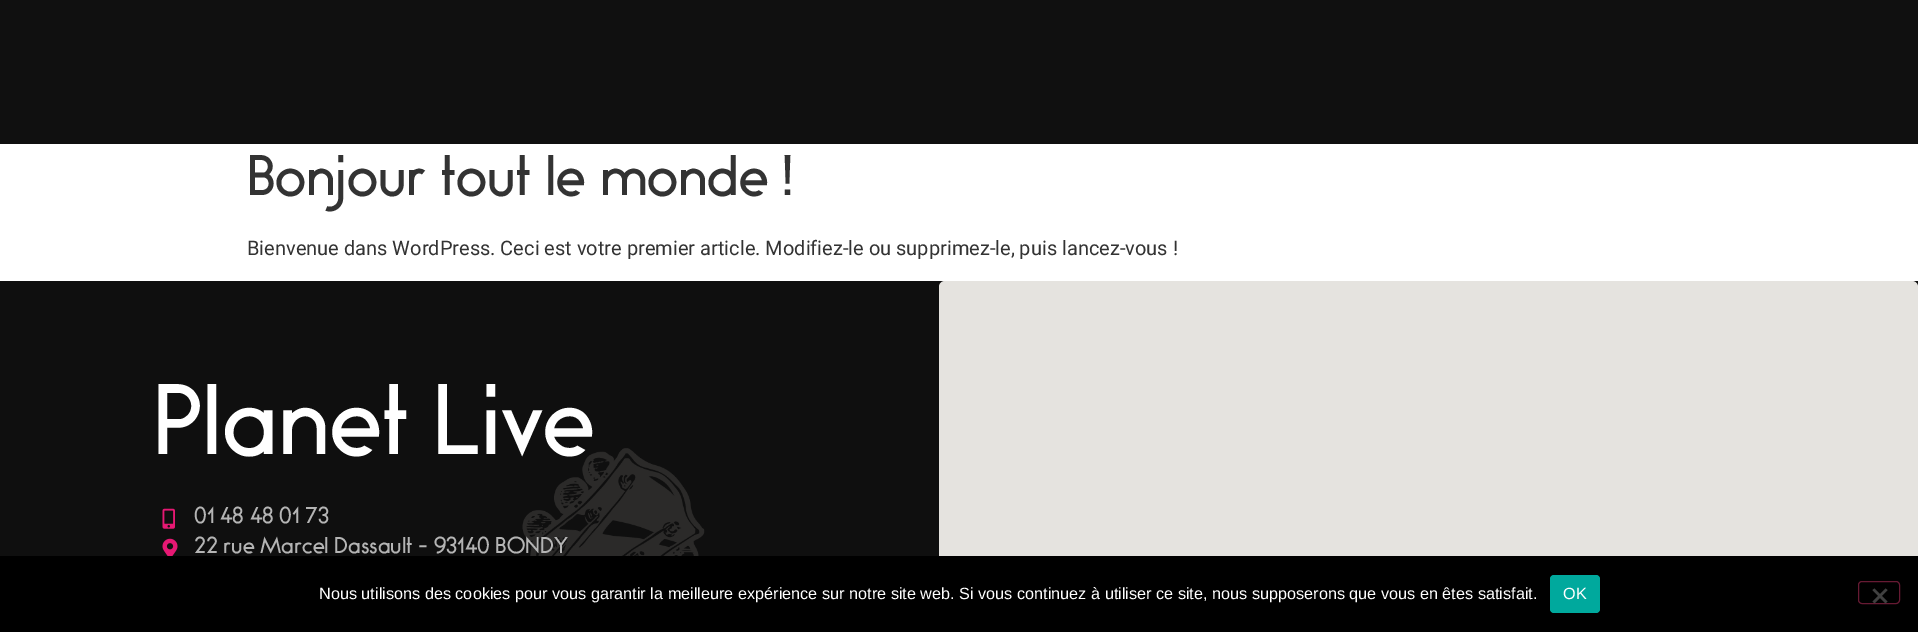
%!PS-Adobe-3.0
%%BoundingBox: 0 0 1918 632
%%LanguageLevel: 3
%%Pages: 1
%%EndComments
%%BeginProlog
/setink { dup -16 bitshift 255 div exch dup -8 bitshift 255 and 255 div exch 255 and 255 div setrgbcolor } def
/usefont { [ exch dup neg 0 0 3 -1 roll 0 0 ] selectfont } def
/rrect { 5 dict begin { /r /h /w /y /x } { exch def } forall
  x r add y moveto x w add y 2 copy h add r arct x w add y h add x 1 index r arct
  x y h add x y r arct x y 2 copy exch w add exch r arct closepath end } def
/drawimage { 5 dict begin { /h /w /y /x /name } { exch def } forall
  gsave x y translate w h scale
  w h 8 [w 0 0 h 0 0] name (r) file false 3 colorimage grestore end } def
%%EndProlog
%%BeginSetup
<< /PageSize [1918 632] >> setpagedevice
%%EndSetup
%%Page: 1 1
0 632 translate 1 -1 scale
4 setmiterlimit
16#FFFFFF setink
0 0 1918 632 rectfill
16#101010 setink
0 0 1918 144 rectfill
/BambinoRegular-Regular 50 usefont
16#333333 setink
247 195 moveto (Bonjour tout le monde !) show
/Roboto-Regular 20 usefont
247 255 moveto (Bienvenue dans WordPress. Ceci est votre premier article. Modifiez-le ou supprimez-le, puis lancez-vous !) show
16#0F0F0F setink
0 281 1918 275 rectfill
(img1.raw) 467 448 238 108 drawimage
/BambinoRegular-Regular 87.5 usefont
16#FFFFFF setink
153 454 moveto (Planet Live) show
(img2.raw) 162 508 13 21 drawimage
/BambinoRegular-Regular 20 usefont
16#B4B4B4 setink
194 523 moveto (01 48 48 01 73) show
(img3.raw) 162 538 16 18 drawimage
194 553 moveto (22 rue Marcel Dassault - 93140 BONDY) show
16#E5E3DF setink
939 281 979 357 6 rrect fill
16#000000 setink
0 556 1918 76 rectfill
/LiberationSans-Regular 16.25 usefont
16#FFFFFF setink
319 599 moveto (Nous utilisons des cookies pour vous garantir la meilleure expérience sur notre site web. Si vous continuez à utiliser ce site, nous supposerons que vous en êtes satisfait.) show
16#00A99D setink
1550 575 50 38 4 rrect fill
16#FFFFFF setink
1563 599 moveto (OK) show
16#661A33 setink
1858.5 581.5 41 22 3.5 rrect stroke
16#404040 setink
1885.5 588.5 moveto 1887.5 590 lineto 1874.5 603.5 lineto 1872.5 601.5 lineto closepath fill
1872.5 590 moveto 1874.5 588.5 lineto 1887.5 601.5 lineto 1885.5 603.5 lineto closepath fill
showpage
%%EOF
